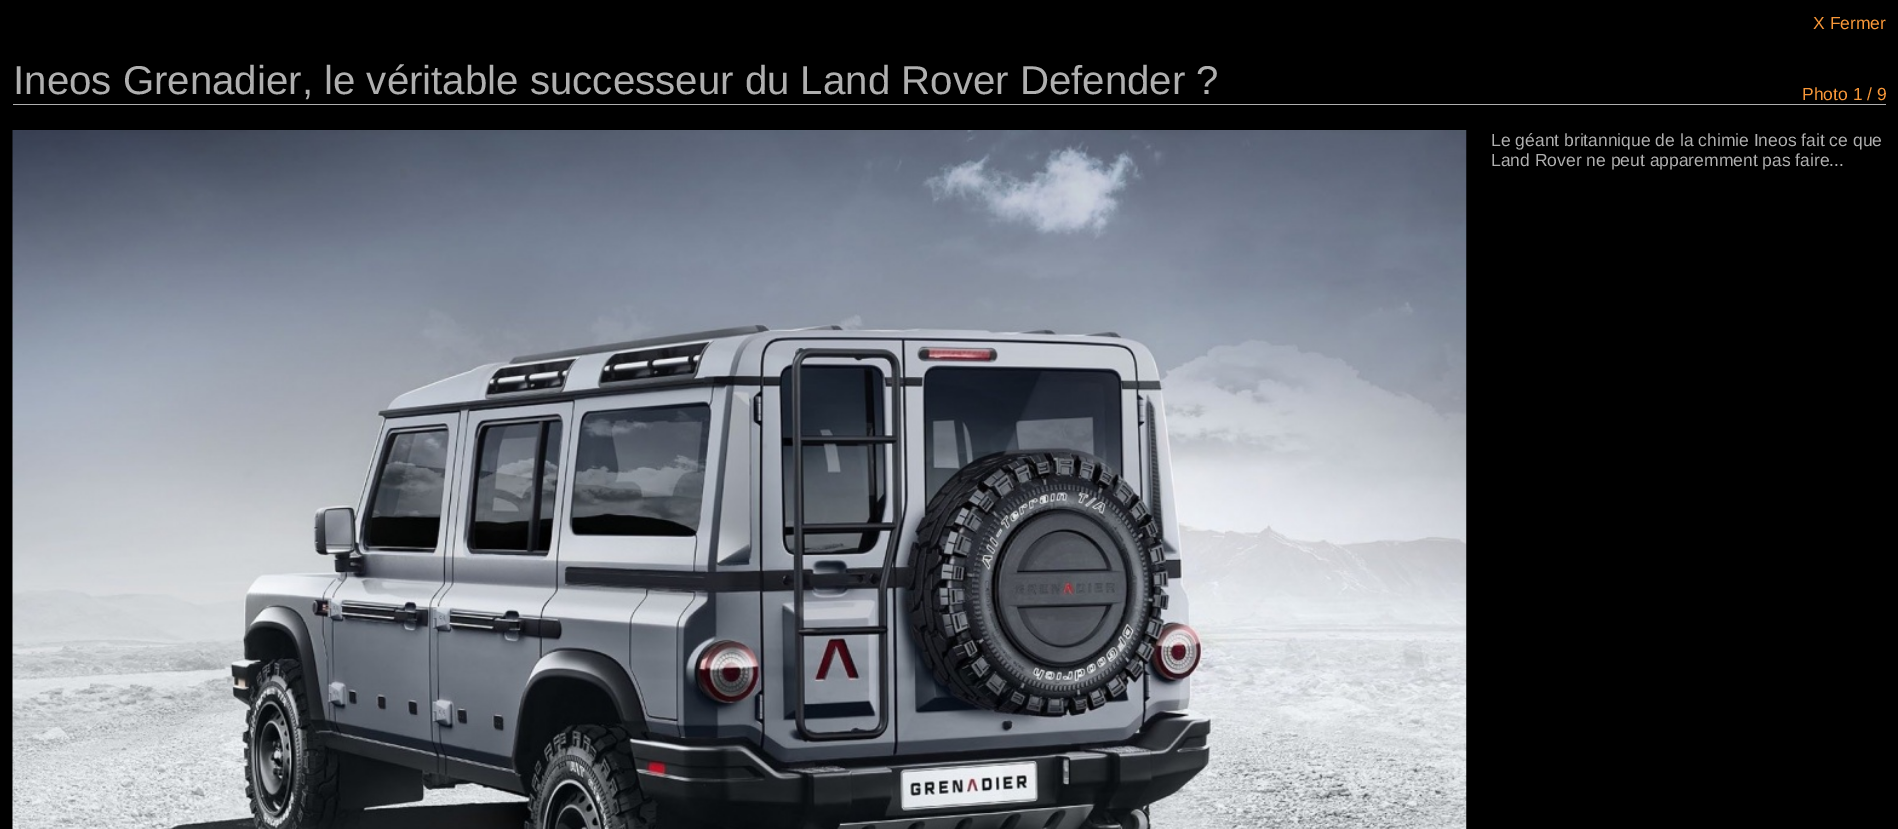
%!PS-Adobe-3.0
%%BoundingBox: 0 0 1898 829
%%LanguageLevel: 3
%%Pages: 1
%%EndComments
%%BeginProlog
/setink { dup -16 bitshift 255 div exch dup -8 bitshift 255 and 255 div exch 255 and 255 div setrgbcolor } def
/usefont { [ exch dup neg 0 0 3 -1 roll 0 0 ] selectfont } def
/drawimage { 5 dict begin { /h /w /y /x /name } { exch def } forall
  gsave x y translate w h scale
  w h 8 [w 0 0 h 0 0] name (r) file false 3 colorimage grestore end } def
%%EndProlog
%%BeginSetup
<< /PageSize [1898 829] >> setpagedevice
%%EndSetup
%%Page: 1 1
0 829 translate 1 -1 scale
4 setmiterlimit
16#000000 setink
0 0 1898 829 rectfill
/LiberationSans-Regular 17.5 usefont
16#F99839 setink
1813 29 moveto (X Fermer) show
16#AFAFAF setink
13 104 1873 1 rectfill
/LiberationSans-Regular 40.25 usefont
13 94 moveto (Ineos Grenadier, le véritable successeur du Land Rover Defender ?) show
/LiberationSans-Regular 17.5 usefont
16#F99839 setink
1802 100 moveto (Photo 1 / 9) show
(img1.raw) 12 130 1455 699 drawimage
16#AFAFAF setink
1491 146 moveto (Le géant britannique de la chimie Ineos fait ce que) show
1491 166 moveto (Land Rover ne peut apparemment pas faire...) show
showpage
%%EOF
